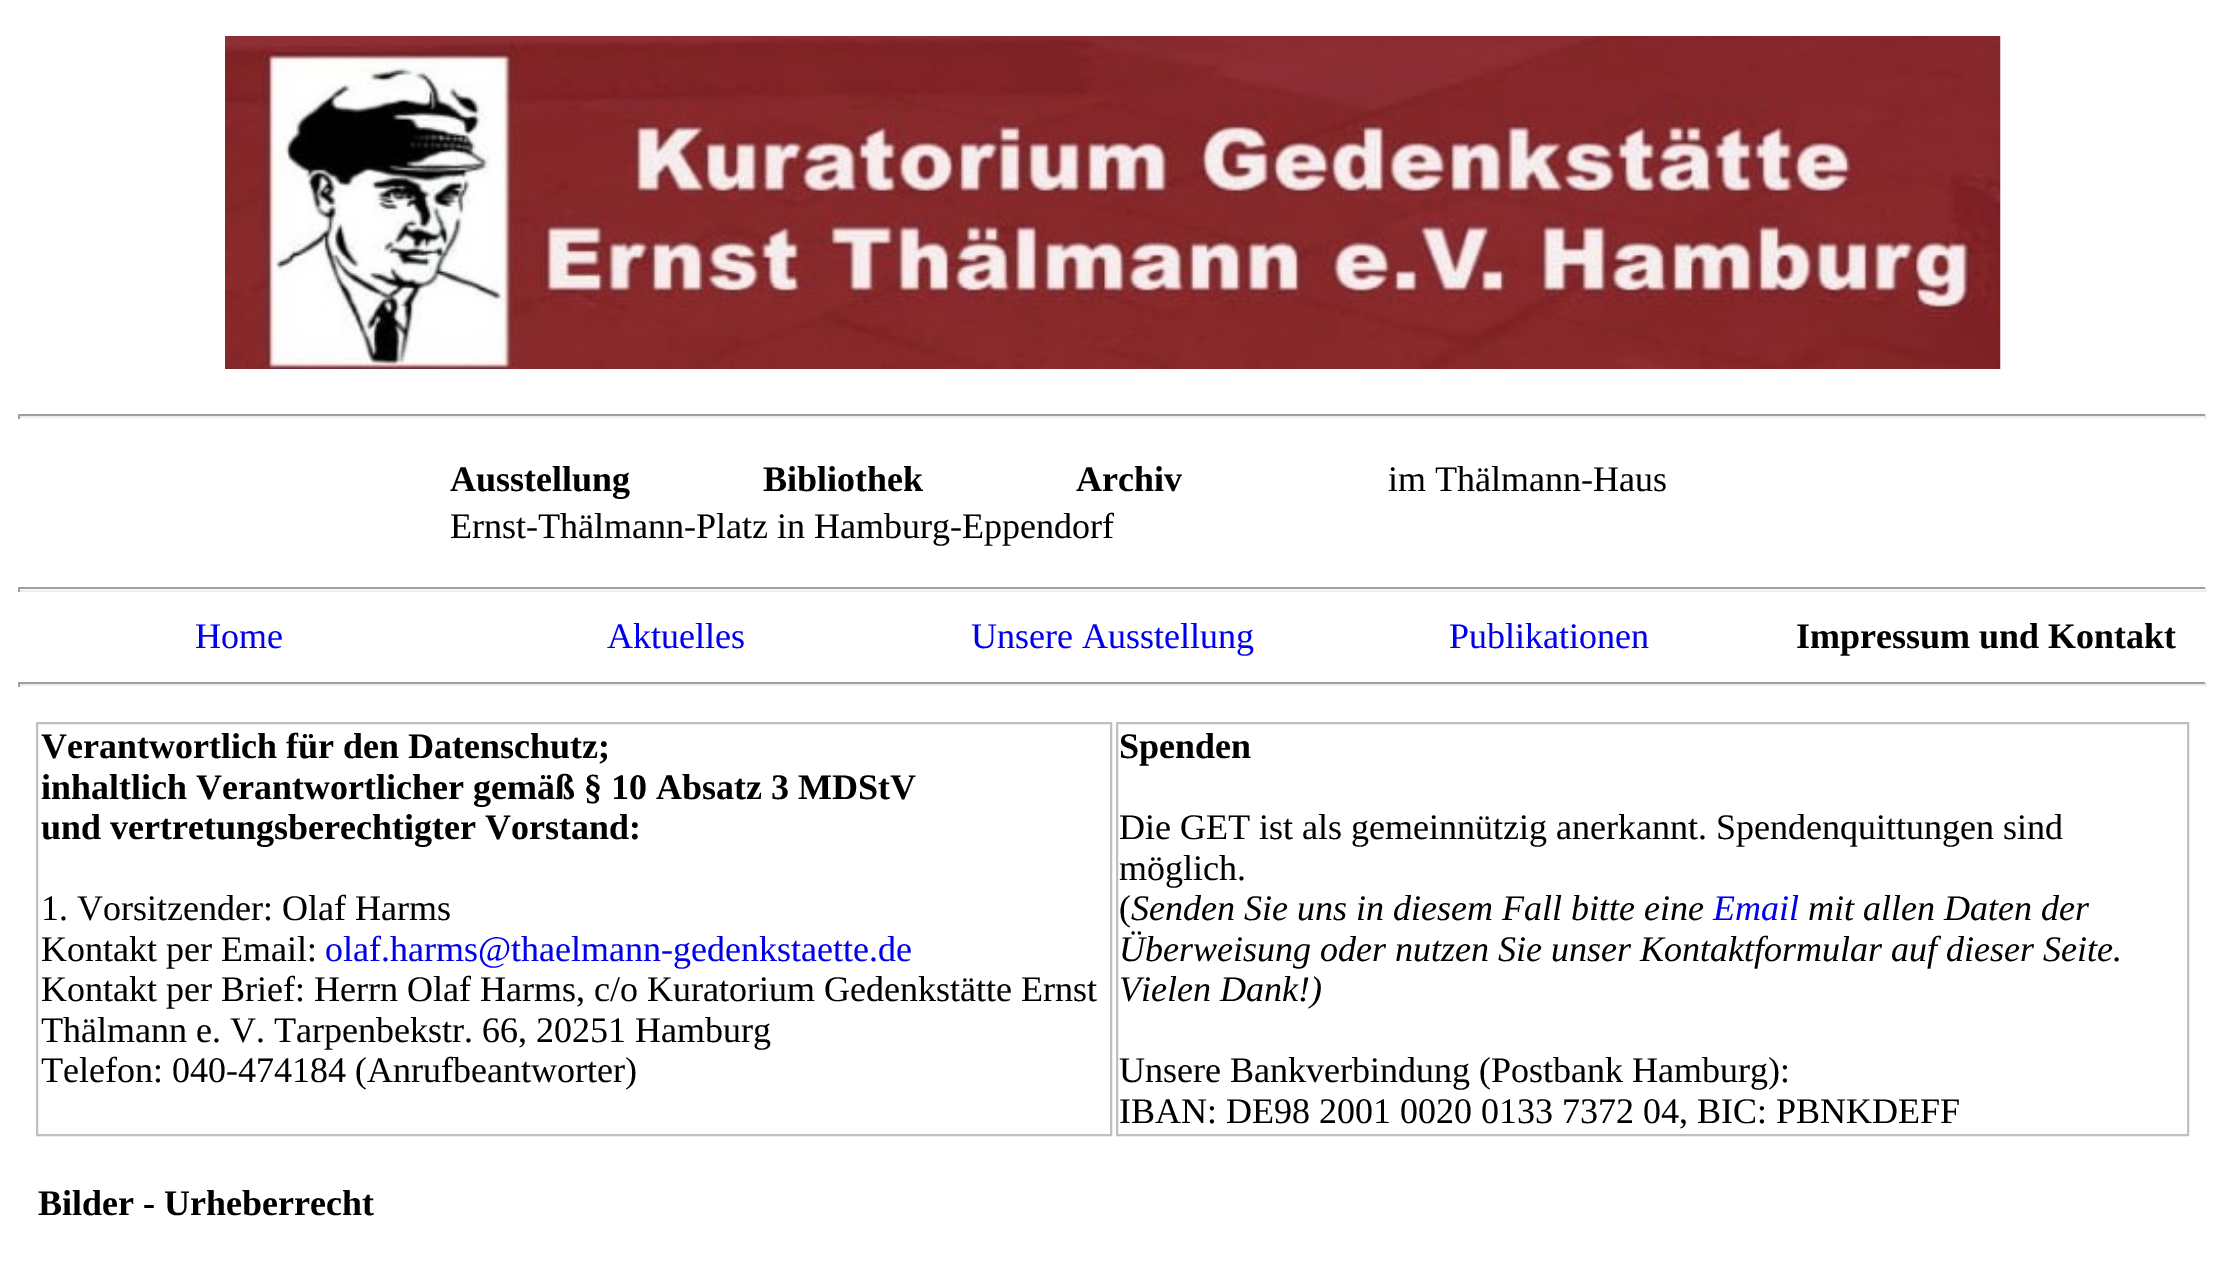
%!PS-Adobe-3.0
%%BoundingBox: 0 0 2224 1285
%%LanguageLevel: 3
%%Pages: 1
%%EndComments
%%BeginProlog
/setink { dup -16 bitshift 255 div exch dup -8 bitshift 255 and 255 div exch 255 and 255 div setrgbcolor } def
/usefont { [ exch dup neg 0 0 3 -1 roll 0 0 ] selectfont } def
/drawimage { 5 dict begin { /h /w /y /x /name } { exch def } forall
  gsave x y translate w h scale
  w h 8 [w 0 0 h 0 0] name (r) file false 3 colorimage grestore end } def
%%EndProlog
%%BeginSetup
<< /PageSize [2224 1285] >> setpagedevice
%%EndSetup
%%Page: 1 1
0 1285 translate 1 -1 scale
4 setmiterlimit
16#FFFFFF setink
0 0 2224 1285 rectfill
(img1.raw) 225 36 1776 333 drawimage
[
    [18 414 2189 2 16#9F9F9F]
    [2205 414 2 5 16#EEEEEE]
    [18 416 2189 2 16#EEEEEE]
    [18 414 2 5 16#9F9F9F]
] { aload pop setink rectfill } forall
/LiberationSerif-Bold 36 usefont
16#000000 setink
[
    [(Ausstellung) 450 491]
    [(Bibliothek) 763 491]
    [(Archiv) 1076 491]
] { aload pop moveto show } forall
/LiberationSerif-Regular 36 usefont
1388 491 moveto (im Thälmann-Haus) show
450 538 moveto (Ernst-Thälmann-Platz in Hamburg-Eppendorf) show
[
    [18 587 2189 2 16#9F9F9F]
    [2205 587 2 5 16#EEEEEE]
    [18 590 2189 2 16#EEEEEE]
    [18 587 2 5 16#9F9F9F]
] { aload pop setink rectfill } forall
16#0000EE setink
[
    [(Home) 195 648]
    [(Aktuelles) 607 648]
    [(Unsere Ausstellung) 971 648]
    [(Publikationen) 1449 648]
] { aload pop moveto show } forall
/LiberationSerif-Bold 36 usefont
16#000000 setink
1796 648 moveto (Impressum und Kontakt) show
[
    [18 682 2189 2 16#9F9F9F]
    [2205 682 2 5 16#EEEEEE]
    [18 684 2189 2 16#EEEEEE]
    [18 682 2 5 16#9F9F9F]
] { aload pop setink rectfill } forall
16#C0C0C0 setink
2 setlinewidth
37 723 1074 412 rectstroke
16#000000 setink
[
    [(Verantwortlich für den Datenschutz;) 41 758]
    [(inhaltlich Verantwortlicher gemäß § 10 Absatz 3 MDStV) 41 799]
    [(und vertretungsberechtigter Vorstand:) 41 839]
] { aload pop moveto show } forall
/LiberationSerif-Regular 36 usefont
41 920 moveto (1. Vorsitzender: Olaf Harms) show
41 961 moveto (Kontakt per Email:) show
16#0000EE setink
325 961 moveto (olaf.harms@thaelmann-gedenkstaette.de) show
16#000000 setink
[
    [(Kontakt per Brief: Herrn Olaf Harms, c/o Kuratorium Gedenkstätte Ernst) 41 1001]
    [(Thälmann e. V. Tarpenbekstr. 66, 20251 Hamburg) 41 1042]
    [(Telefon: 040-474184 \(Anrufbeantworter\)) 41 1082]
] { aload pop moveto show } forall
16#C0C0C0 setink
1117 723 1071 412 rectstroke
/LiberationSerif-Bold 36 usefont
16#000000 setink
1119 758 moveto (Spenden) show
/LiberationSerif-Regular 36 usefont
[
    [(Die GET ist als gemeinnützig anerkannt. Spendenquittungen sind) 1119 839]
    [(möglich.) 1119 880]
    [(\() 1119 920]
] { aload pop moveto show } forall
/LiberationSerif-Italic 36 usefont
1131 920 moveto (Senden Sie uns in diesem Fall bitte eine) show
16#0000EE setink
1713 920 moveto (Email) show
16#000000 setink
[
    [(mit allen Daten der) 1808 920]
    [(Überweisung oder nutzen Sie unser Kontaktformular auf dieser Seite.) 1119 961]
    [(Vielen Dank!\)) 1119 1001]
] { aload pop moveto show } forall
/LiberationSerif-Regular 36 usefont
1119 1082 moveto (Unsere Bankverbindung \(Postbank Hamburg\):) show
1119 1123 moveto (IBAN: DE98 2001 0020 0133 7372 04, BIC: PBNKDEFF) show
/LiberationSerif-Bold 36 usefont
38 1215 moveto (Bilder - Urheberrecht) show
showpage
%%EOF
